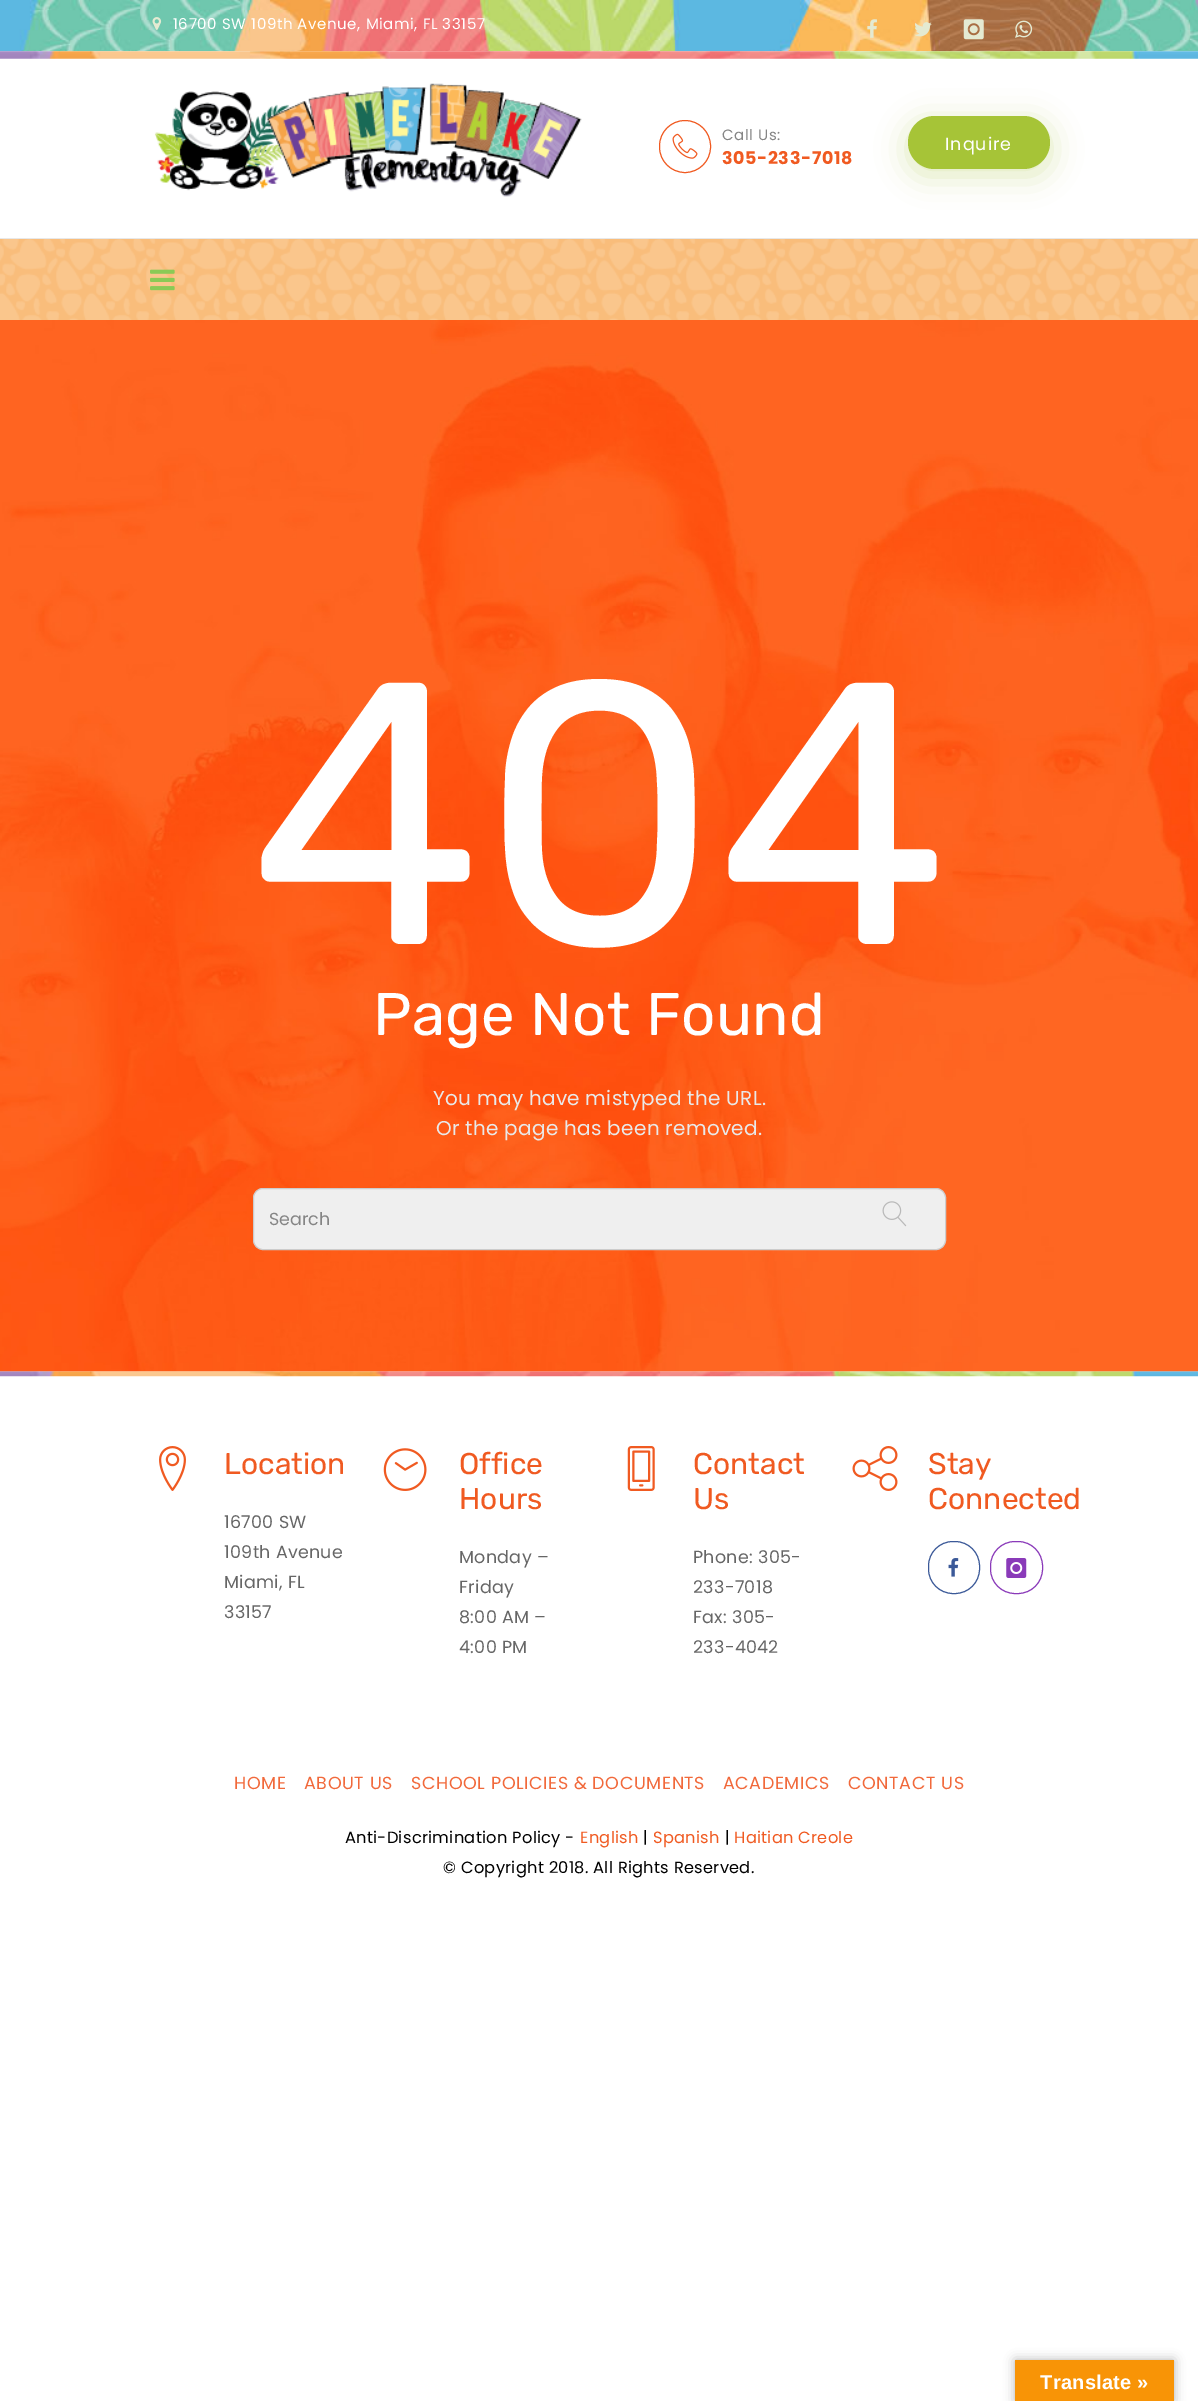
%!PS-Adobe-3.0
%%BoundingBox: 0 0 1198 2401
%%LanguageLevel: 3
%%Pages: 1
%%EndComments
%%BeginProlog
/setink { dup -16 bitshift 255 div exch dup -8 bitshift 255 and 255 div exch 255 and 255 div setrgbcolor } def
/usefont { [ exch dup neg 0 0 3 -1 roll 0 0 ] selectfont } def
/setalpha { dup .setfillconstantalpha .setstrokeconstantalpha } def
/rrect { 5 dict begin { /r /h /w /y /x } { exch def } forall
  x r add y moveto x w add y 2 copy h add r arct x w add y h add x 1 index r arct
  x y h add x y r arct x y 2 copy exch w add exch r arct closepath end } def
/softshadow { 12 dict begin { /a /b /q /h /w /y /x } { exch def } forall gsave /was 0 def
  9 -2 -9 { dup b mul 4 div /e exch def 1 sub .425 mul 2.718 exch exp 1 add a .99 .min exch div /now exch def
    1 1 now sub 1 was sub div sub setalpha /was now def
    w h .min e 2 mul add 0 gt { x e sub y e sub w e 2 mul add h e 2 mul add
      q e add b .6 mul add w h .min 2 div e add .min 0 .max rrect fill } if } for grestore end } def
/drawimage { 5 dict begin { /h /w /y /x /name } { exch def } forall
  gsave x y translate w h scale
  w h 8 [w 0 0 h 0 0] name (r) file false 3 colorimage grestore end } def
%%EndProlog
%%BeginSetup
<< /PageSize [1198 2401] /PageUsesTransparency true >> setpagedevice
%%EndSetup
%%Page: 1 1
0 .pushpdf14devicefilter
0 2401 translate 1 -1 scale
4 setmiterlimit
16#FFFFFF setink
0 0 1198 2401 rectfill
(img1.raw) 0 0 1198 52 drawimage
(img2.raw) 152 17 10 13 drawimage
/Poppins-Regular 15 usefont
173 29 moveto 0.6 0 (16700 SW 109th Avenue, Miami, FL 33157) ashow
(img3.raw) 867 19 10 19 drawimage
(img4.raw) 914 22 18 15 drawimage
(img5.raw) 963 19 21 21 drawimage
(img6.raw) 1015 20 18 18 drawimage
(img7.raw) 0 51 1198 8 drawimage
(img8.raw) 154 83 428 114 drawimage
16#F05A21 setink
659.5 120.5 51 52 25.5 rrect stroke
(img9.raw) 672 133 26 26 drawimage
16#858585 setink
722 140 moveto 0.6 0 (Call Us:) ashow
/Poppins-Bold 17.5 usefont
16#F05A21 setink
722 164 moveto 0.6 0 (305-233-7018) ashow
16#A6C437 setink
908 123 142 52 26 15.5 0.35 softshadow
908 116 142 53 26.5 rrect fill
/Poppins-Regular 17.5 usefont
16#FFFFFF setink
945 150 moveto 1 0 (Inquire) ashow
(img10.raw) 0 239 1198 81 drawimage
16#E8E8E8 setink
0 238 1198 1 rectfill
(img11.raw) 150 269 25 22 drawimage
(img14.raw) 0 1371 1198 6 drawimage
(img12.raw) 0 320 1198 1052 drawimage
/Rubik-Regular 375 usefont
16#FFFFFF setink
250 944 moveto -2 0 (404) ashow
/Rubik-Regular 60 usefont
373 1035 moveto 0.3 0 (Page Not Found) ashow
/Poppins-Regular 20 usefont
16#E9E9E9 setink
433 1105 moveto 0.3 0 (You may have mistyped the URL.) ashow
436 1135 moveto 0.3 0 (Or the page has been removed.) ashow
16#EFEFEF setink
253.5 1188.5 692 61 9.5 rrect gsave fill grestore
16#CCCCCC setink
stroke
/Poppins-Regular 17.5 usefont
16#858585 setink
269 1225 moveto (Search) show
(img13.raw) 882 1201 25 26 drawimage
(img15.raw) 159 1446 27 45 drawimage
/Rubik-Regular 30 usefont
16#F05A21 setink
224 1474 moveto (Location) show
/Poppins-Regular 17.5 usefont
16#666666 setink
224 1528 moveto 0.3 0 (16700 SW) ashow
224 1558 moveto 0.3 0 (109th Avenue) ashow
224 1588 moveto 0.3 0 (Miami, FL) ashow
224 1618 moveto 0.3 0 (33157) ashow
(img16.raw) 383 1448 44 43 drawimage
/Rubik-Regular 30 usefont
16#F05A21 setink
459 1474 moveto (Office) show
459 1509 moveto (Hours) show
/Poppins-Regular 17.5 usefont
16#666666 setink
459 1563 moveto 0.3 0 (Monday –) ashow
459 1593 moveto 0.3 0 (Friday) ashow
459 1623 moveto 0.3 0 (8:00 AM –) ashow
459 1653 moveto 0.3 0 (4:00 PM) ashow
(img17.raw) 627 1446 28 45 drawimage
/Rubik-Regular 30 usefont
16#F05A21 setink
693 1474 moveto (Contact) show
693 1509 moveto (Us) show
/Poppins-Regular 17.5 usefont
16#666666 setink
693 1563 moveto 0.3 0 (Phone: 305-) ashow
693 1593 moveto 0.3 0 (233-7018) ashow
693 1623 moveto 0.3 0 (Fax: 305-) ashow
693 1653 moveto 0.3 0 (233-4042) ashow
(img18.raw) 852 1446 46 45 drawimage
/Rubik-Regular 30 usefont
16#F05A21 setink
928 1474 moveto (Stay) show
928 1509 moveto (Connected) show
16#3B5998 setink
928.5 1541.5 51 52 24.5 rrect stroke
(img19.raw) 948 1558 11 19 drawimage
16#8A3AB9 setink
990.5 1541.5 52 52 24.5 rrect stroke
(img20.raw) 1006 1558 21 20 drawimage
/Poppins-Regular 17.5 usefont
16#F1693B setink
234 1789 moveto 0.6 0 (HOME) ashow
304 1789 moveto 0.6 0 (ABOUT US) ashow
411 1789 moveto 0.6 0 (SCHOOL POLICIES & DOCUMENTS) ashow
723 1789 moveto 0.6 0 (ACADEMICS) ashow
848 1789 moveto 0.6 0 (CONTACT US) ashow
/Poppins-Regular 16.25 usefont
16#000000 setink
345 1843 moveto 0.3 0 (Anti-Discrimination Policy -) ashow
16#F05A21 setink
580 1843 moveto 0.3 0 (English) ashow
16#000000 setink
643 1843 moveto 0.3 0 (|) ashow
16#F05A21 setink
653 1843 moveto 0.3 0 (Spanish) ashow
16#000000 setink
725 1843 moveto 0.3 0 (|) ashow
16#F05A21 setink
734 1843 moveto 0.3 0 (Haitian Creole) ashow
16#000000 setink
443 1873 moveto 0.3 0 (© Copyright 2018. All Rights Reserved.) ashow
1015 2360 159 41 0 5.5 0.3 softshadow
16#F89406 setink
1015 2360 159 41 rectfill
/LiberationSans-Bold 20 usefont
16#FFFFFF setink
1040 2389 moveto 0.3 0 (Translate ») ashow
.poppdf14devicefilter showpage
%%EOF
